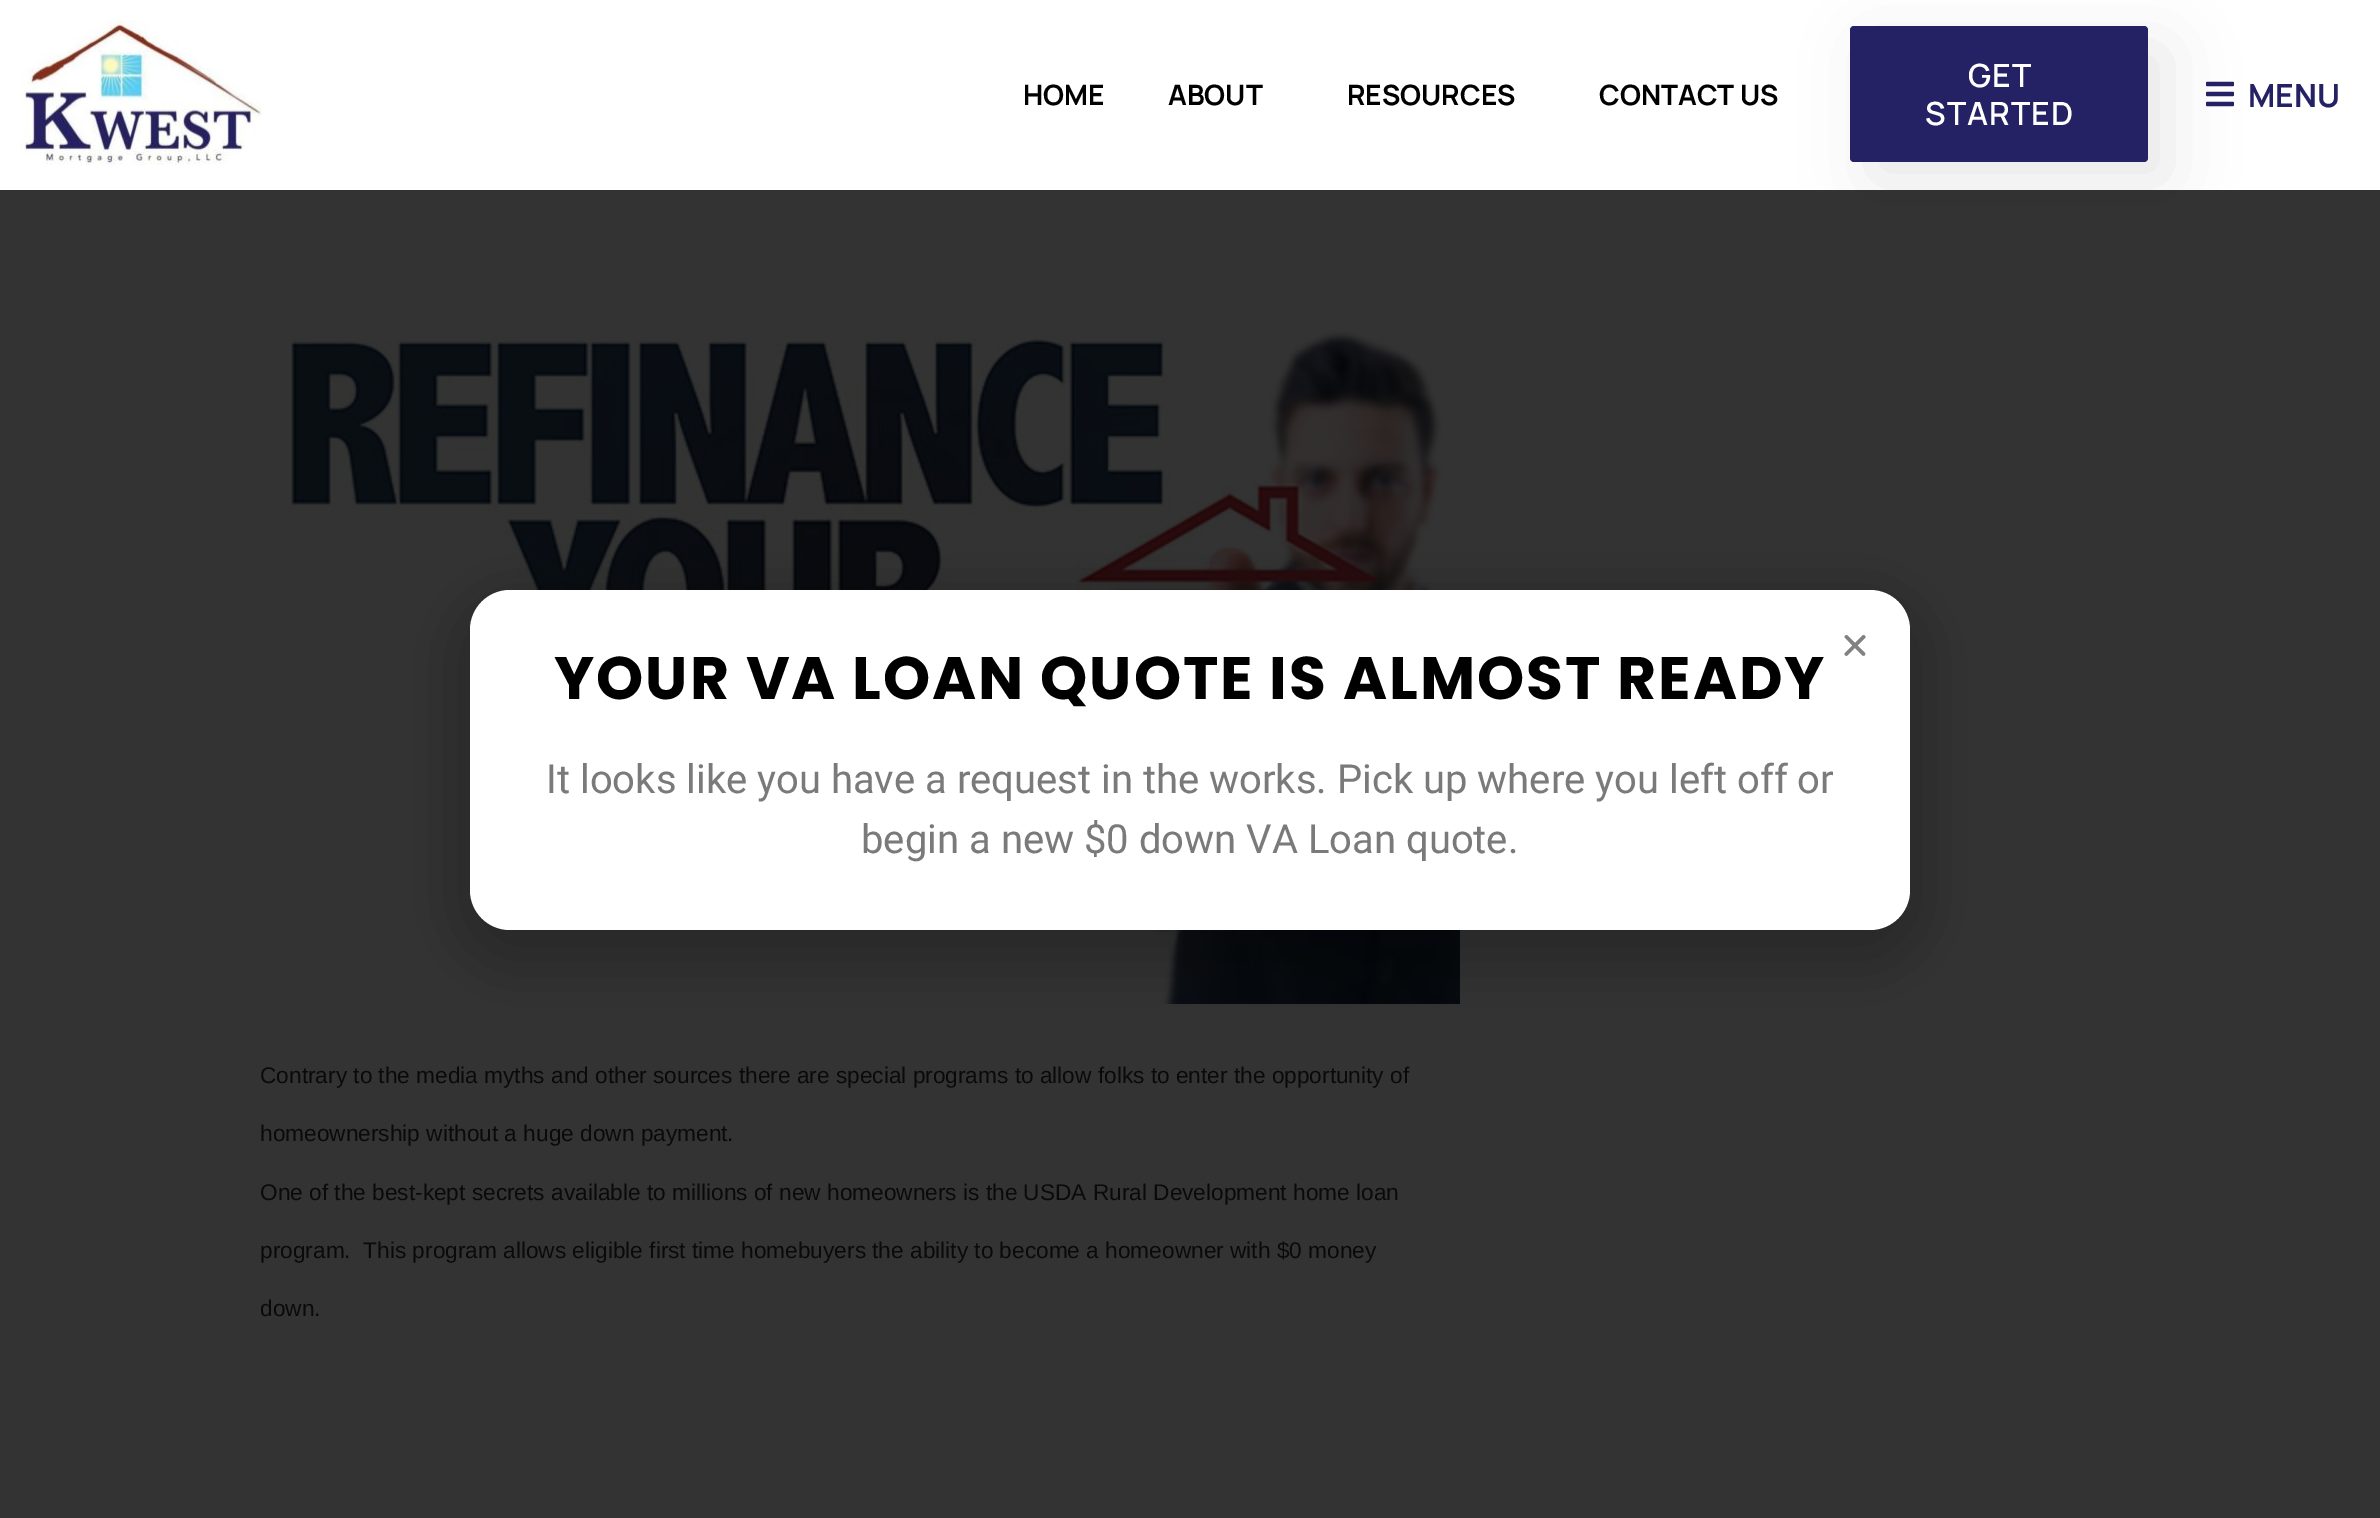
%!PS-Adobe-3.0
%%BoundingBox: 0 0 2380 1518
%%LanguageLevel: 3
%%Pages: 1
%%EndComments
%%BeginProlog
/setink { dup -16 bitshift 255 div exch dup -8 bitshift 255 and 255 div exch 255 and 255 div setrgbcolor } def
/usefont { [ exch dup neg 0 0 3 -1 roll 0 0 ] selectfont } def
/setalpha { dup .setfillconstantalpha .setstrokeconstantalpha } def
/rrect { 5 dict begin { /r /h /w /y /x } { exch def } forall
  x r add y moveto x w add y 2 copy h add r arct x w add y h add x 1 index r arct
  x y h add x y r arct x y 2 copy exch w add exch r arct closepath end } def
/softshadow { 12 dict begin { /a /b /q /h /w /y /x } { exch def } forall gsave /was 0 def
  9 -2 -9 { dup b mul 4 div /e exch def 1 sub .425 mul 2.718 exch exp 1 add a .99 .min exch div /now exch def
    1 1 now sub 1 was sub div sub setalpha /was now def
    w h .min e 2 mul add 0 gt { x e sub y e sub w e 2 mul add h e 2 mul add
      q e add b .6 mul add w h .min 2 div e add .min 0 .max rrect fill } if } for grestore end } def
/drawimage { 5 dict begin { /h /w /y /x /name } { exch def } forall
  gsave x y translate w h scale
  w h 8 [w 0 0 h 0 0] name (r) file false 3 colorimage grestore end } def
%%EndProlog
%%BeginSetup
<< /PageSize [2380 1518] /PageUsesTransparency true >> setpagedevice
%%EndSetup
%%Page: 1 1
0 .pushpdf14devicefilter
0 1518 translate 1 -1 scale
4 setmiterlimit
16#333333 setink
0 0 2380 1518 rectfill
16#FFFFFF setink
0 0 2380 190 rectfill
(img1.raw) 20 20 242 148 drawimage
/Manrope-Bold 28 usefont
16#000000 setink
[
    [(HOME) 1023 105]
    [(ABOUT) 1168 105]
    [(RESOURCES) 1347 105]
] { aload pop moveto show } forall
1870 46 298 136 4 33 0.09 softshadow
1599 105 moveto (CONTACT US) show
16#252165 setink
1850 26 298 136 4 rrect fill
/Manrope-SemiBold 32 usefont
16#FFFFFF setink
1968 87 moveto 1 0 (GET) ashow
1925 125 moveto 1 0 (STARTED) ashow
(img2.raw) 2206 81 28 26 drawimage
/Manrope-Bold 32 usefont
16#252165 setink
2248 107 moveto (MENU) show
(img4.raw) 291 331 1169 673 drawimage
16#000000 setink
450 590 1480 380 60 30 0.2 softshadow
16#FFFFFF setink
470 590 1440 340 40 rrect fill
(img3.raw) 1844 634 22 22 drawimage
/Poppins-Bold 60 usefont
16#000000 setink
554 699 moveto 2 0 (YOUR VA LOAN QUOTE IS ALMOST READY) ashow
/Roboto-Regular 40 usefont
16#7A7A7A setink
546 793 moveto (It looks like you have a request in the works. Pick up where you left off or) show
861 853 moveto (begin a new $0 down VA Loan quote.) show
/LiberationSans-Regular 22.67 usefont
16#0A0A0A setink
[
    [(Contrary to the media myths and other sources there are special programs to allow folks to enter the opportunity of) 260 1083]
    [(homeownership without a huge down payment.) 260 1141]
    [(One of the best-kept secrets available to millions of new homeowners is the USDA Rural Development home loan) 260 1200]
    [(program.  This program allows eligible first time homebuyers the ability to become a homeowner with $0 money) 260 1258]
    [(down.) 260 1316]
] { aload pop moveto show } forall
.poppdf14devicefilter showpage
%%EOF
